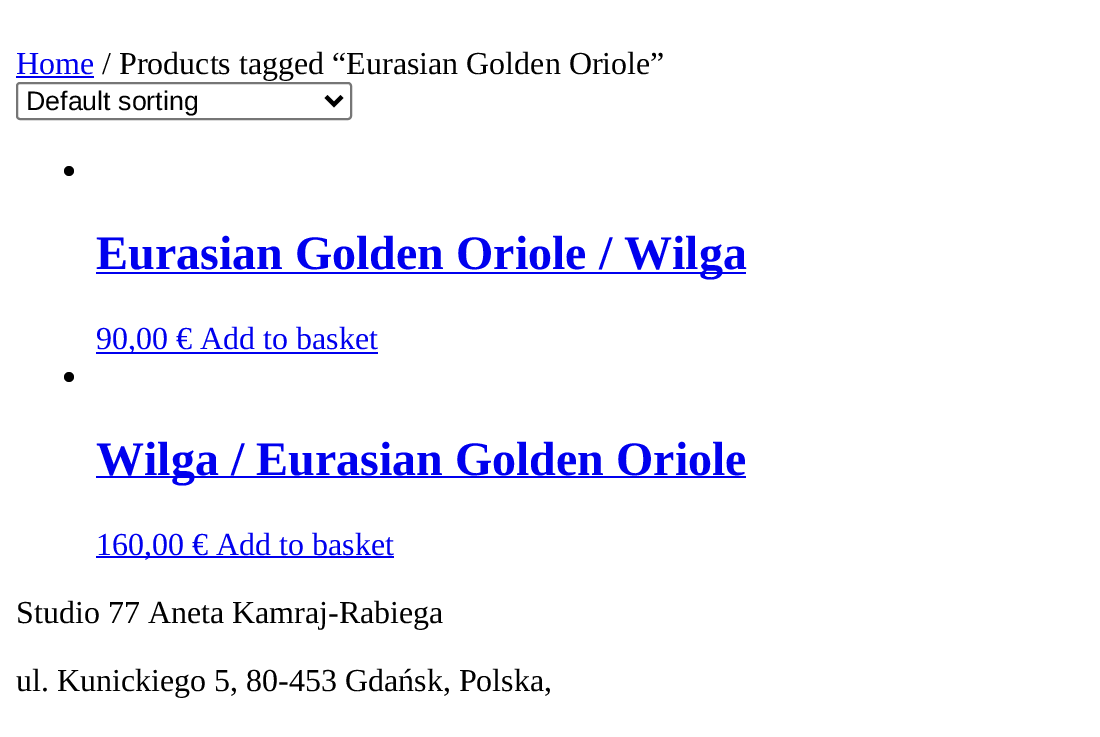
%!PS-Adobe-3.0
%%BoundingBox: 0 0 1100 737
%%LanguageLevel: 3
%%Pages: 1
%%EndComments
%%BeginProlog
/setink { dup -16 bitshift 255 div exch dup -8 bitshift 255 and 255 div exch 255 and 255 div setrgbcolor } def
/usefont { [ exch dup neg 0 0 3 -1 roll 0 0 ] selectfont } def
/disc { newpath 0 360 arc closepath } def
/rrect { 5 dict begin { /r /h /w /y /x } { exch def } forall
  x r add y moveto x w add y 2 copy h add r arct x w add y h add x 1 index r arct
  x y h add x y r arct x y 2 copy exch w add exch r arct closepath end } def
%%EndProlog
%%BeginSetup
<< /PageSize [1100 737] >> setpagedevice
%%EndSetup
%%Page: 1 1
0 737 translate 1 -1 scale
4 setmiterlimit
16#FFFFFF setink
0 0 1100 737 rectfill
/LiberationSerif-Regular 32 usefont
16#0000EE setink
16 74 moveto (Home) show
16 76 78 2 rectfill
16#000000 setink
102 74 moveto (/ Products tagged “Eurasian Golden Oriole”) show
16#767676 setink
2 setlinewidth
17 83 334 36 3 rrect stroke
16#000000 setink
4 setlinewidth
326 96.5 moveto 334 104.5 lineto 342 96.5 lineto stroke
/LiberationSans-Regular 26.75 usefont
26 110 moveto (Default sorting) show
69 171 5 disc fill
16#0000EE setink
96 272 650 2 rectfill
/LiberationSerif-Bold 48 usefont
96 269 moveto (Eurasian Golden Oriole / Wilga) show
96 352 282 2 rectfill
/LiberationSerif-Regular 32 usefont
96 349 moveto (90,00 € Add to basket) show
16#000000 setink
69 377 5 disc fill
16#0000EE setink
96 476 650 2 rectfill
/LiberationSerif-Bold 48 usefont
96 475 moveto (Wilga / Eurasian Golden Oriole) show
96 556 298 2 rectfill
/LiberationSerif-Regular 32 usefont
96 555 moveto (160,00 € Add to basket) show
16#000000 setink
16 623 moveto (Studio 77 Aneta Kamraj-Rabiega) show
16 691 moveto (ul. Kunickiego 5, 80-453 Gdańsk, Polska,) show
showpage
%%EOF
